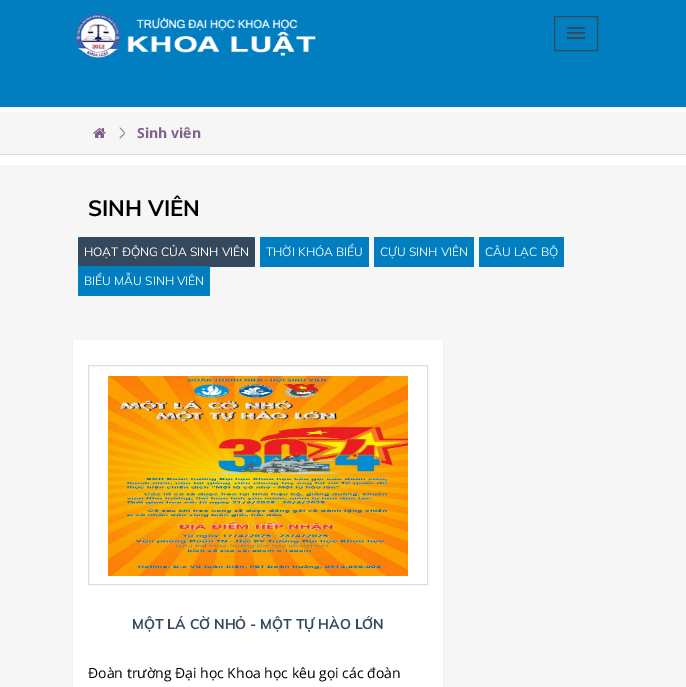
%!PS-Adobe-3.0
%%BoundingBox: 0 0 686 687
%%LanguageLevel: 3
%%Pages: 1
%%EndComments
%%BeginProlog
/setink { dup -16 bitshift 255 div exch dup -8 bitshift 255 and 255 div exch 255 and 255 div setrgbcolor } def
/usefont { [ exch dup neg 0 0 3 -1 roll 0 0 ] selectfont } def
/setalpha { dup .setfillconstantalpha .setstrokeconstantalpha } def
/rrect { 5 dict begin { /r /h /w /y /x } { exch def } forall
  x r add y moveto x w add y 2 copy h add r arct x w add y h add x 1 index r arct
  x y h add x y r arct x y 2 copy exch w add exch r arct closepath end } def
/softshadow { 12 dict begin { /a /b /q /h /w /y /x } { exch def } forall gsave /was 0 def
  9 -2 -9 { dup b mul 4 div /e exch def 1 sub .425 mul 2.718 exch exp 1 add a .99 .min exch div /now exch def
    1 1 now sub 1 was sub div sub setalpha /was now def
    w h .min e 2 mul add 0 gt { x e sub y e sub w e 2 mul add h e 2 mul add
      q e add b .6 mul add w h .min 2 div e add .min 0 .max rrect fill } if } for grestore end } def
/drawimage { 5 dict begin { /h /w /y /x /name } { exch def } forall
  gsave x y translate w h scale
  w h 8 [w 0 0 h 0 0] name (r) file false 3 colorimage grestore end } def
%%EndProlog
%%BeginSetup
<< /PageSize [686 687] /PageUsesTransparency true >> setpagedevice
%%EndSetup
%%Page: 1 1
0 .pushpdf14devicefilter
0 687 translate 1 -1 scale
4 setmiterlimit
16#FFFFFF setink
0 0 686 687 rectfill
16#007EC0 setink
0 0 686 107 rectfill
(img1.raw) 76 13 240 45 drawimage
16#34495E setink
554.5 16.5 43 34 rectstroke
567 27 18 2 1 rrect fill
567 32 18 2 1 rrect fill
567 37 18 2 1 rrect fill
16#F6F6F6 setink
0 112 686 42 rectfill
16#DDDDDD setink
0 154 686 1 rectfill
(img2.raw) 93 128 13 10 drawimage
(img3.raw) 119 127 6 12 drawimage
/OpenSans-Bold 14 usefont
16#7F5F8C setink
137 138 moveto (Sinh viên) show
16#F6F6F6 setink
0 165 686 522 rectfill
/Muli-Bold 22 usefont
16#000000 setink
88 216 moveto (SINH VIÊN) show
16#007EC0 setink
78 237 177 30 rectfill
16#34495E setink
78 237 177 30 4 rrect fill
/Muli-Regular 12 usefont
16#FFFFFF setink
84 256 moveto (HOẠT ĐỘNG CỦA SINH VIÊN) show
16#007EC0 setink
260 237 109 30 rectfill
16#E5F7FD setink
266 256 moveto (THỜI KHÓA BIỂU) show
16#007EC0 setink
374 237 100 30 rectfill
16#E5F7FD setink
380 256 moveto (CỰU SINH VIÊN) show
16#007EC0 setink
479 237 85 30 rectfill
16#E5F7FD setink
485 256 moveto (CÂU LẠC BỘ) show
16#007EC0 setink
78 266 132 30 rectfill
16#E5F7FD setink
84 285 moveto (BIỂU MẪU SINH VIÊN) show
16#DDDDDD setink
73 341 370 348 0 0.5 1 softshadow
16#FFFFFF setink
73 340 370 347 rectfill
16#DDDDDD setink
88.5 365.5 339 219 rectstroke
(img4.raw) 108 376 300 200 drawimage
/Muli-Bold 14 usefont
16#34495E setink
132 629 moveto (MỘT LÁ CỜ NHỎ - MỘT TỰ HÀO LỚN) show
/OpenSans-Regular 14 usefont
16#000000 setink
88 678 moveto (Đoàn trường Đại học Khoa học kêu gọi các đoàn) show
.poppdf14devicefilter showpage
%%EOF
